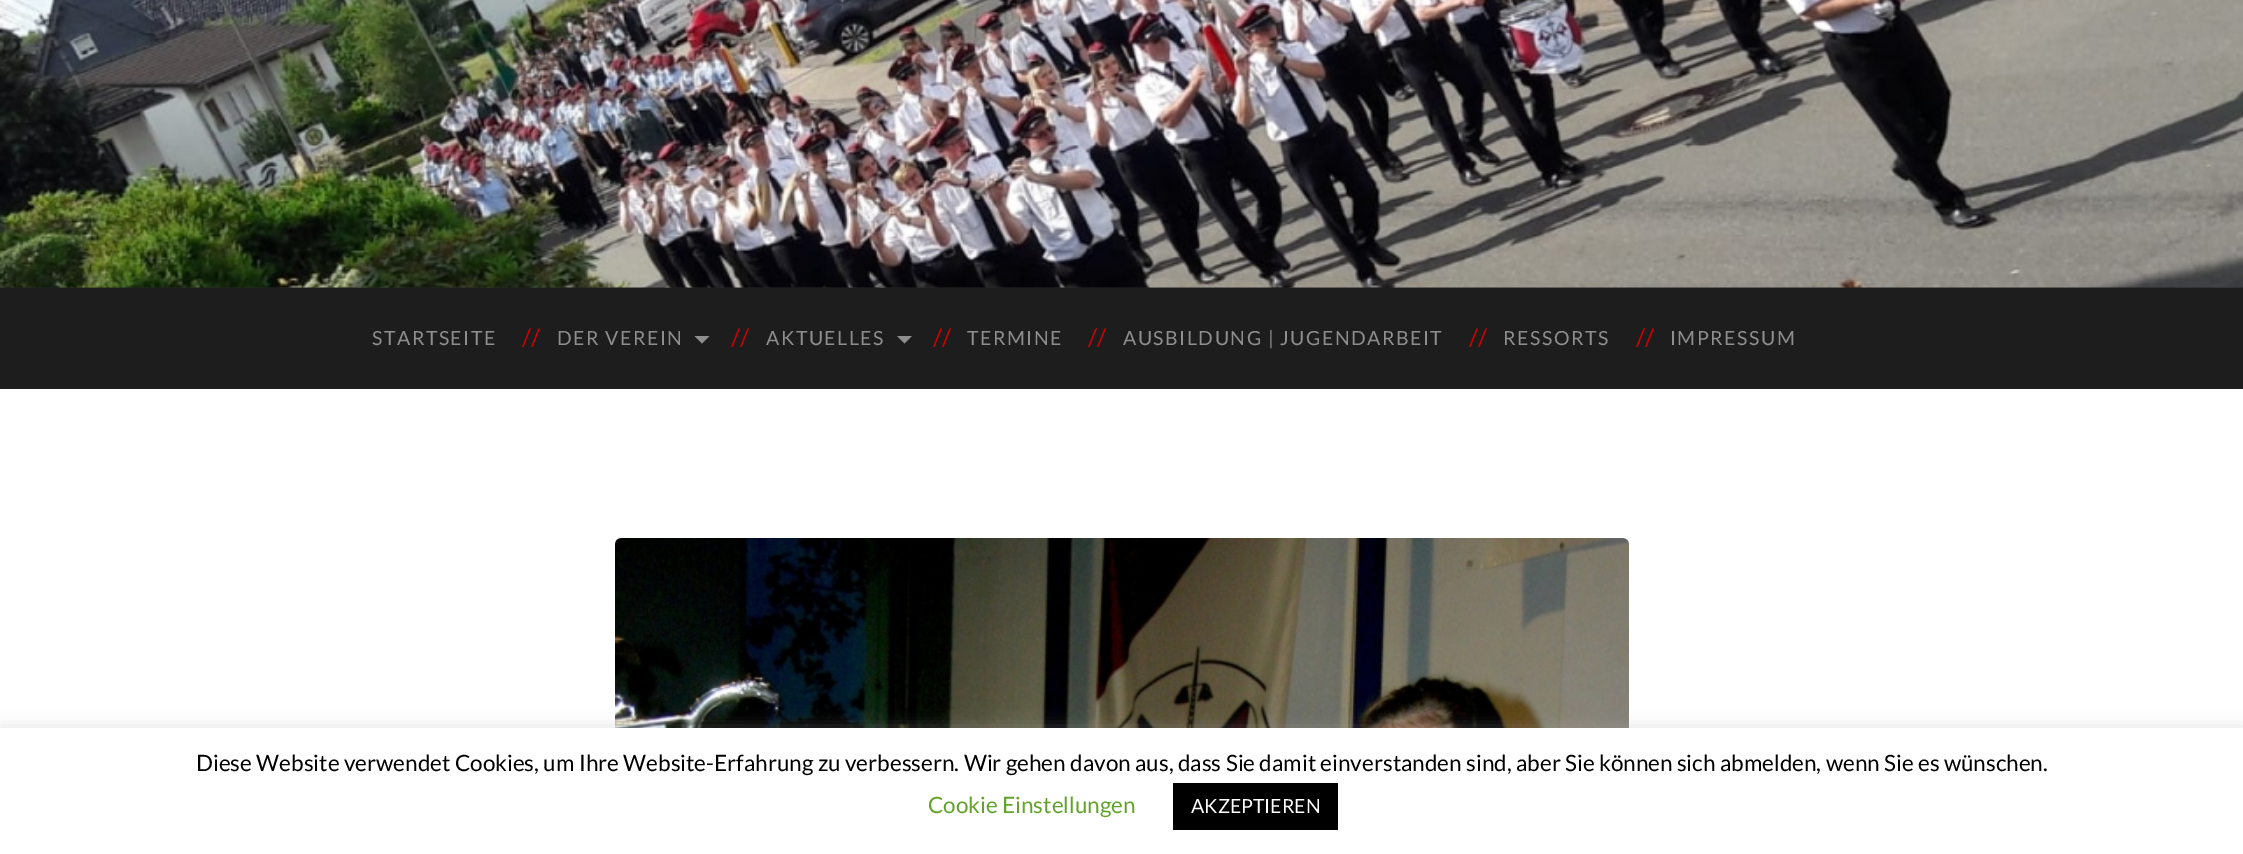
%!PS-Adobe-3.0
%%BoundingBox: 0 0 2243 854
%%LanguageLevel: 3
%%Pages: 1
%%EndComments
%%BeginProlog
/setink { dup -16 bitshift 255 div exch dup -8 bitshift 255 and 255 div exch 255 and 255 div setrgbcolor } def
/usefont { [ exch dup neg 0 0 3 -1 roll 0 0 ] selectfont } def
/setalpha { dup .setfillconstantalpha .setstrokeconstantalpha } def
/rrect { 5 dict begin { /r /h /w /y /x } { exch def } forall
  x r add y moveto x w add y 2 copy h add r arct x w add y h add x 1 index r arct
  x y h add x y r arct x y 2 copy exch w add exch r arct closepath end } def
/softshadow { 12 dict begin { /a /b /q /h /w /y /x } { exch def } forall gsave /was 0 def
  9 -2 -9 { dup b mul 4 div /e exch def 1 sub .425 mul 2.718 exch exp 1 add a .99 .min exch div /now exch def
    1 1 now sub 1 was sub div sub setalpha /was now def
    w h .min e 2 mul add 0 gt { x e sub y e sub w e 2 mul add h e 2 mul add
      q e add b .6 mul add w h .min 2 div e add .min 0 .max rrect fill } if } for grestore end } def
/drawimage { 5 dict begin { /h /w /y /x /name } { exch def } forall
  gsave x y translate w h scale
  w h 8 [w 0 0 h 0 0] name (r) file false 3 colorimage grestore end } def
%%EndProlog
%%BeginSetup
<< /PageSize [2243 854] /PageUsesTransparency true >> setpagedevice
%%EndSetup
%%Page: 1 1
0 .pushpdf14devicefilter
0 854 translate 1 -1 scale
4 setmiterlimit
16#FFFFFF setink
0 0 2243 854 rectfill
16#262626 setink
0 287 2243 1 rectfill
(img1.raw) 0 0 2243 288 drawimage
16#1D1D1D setink
0 288 2243 101 rectfill
/Lato-Regular 19.5 usefont
16#8E8E8E setink
372 345 moveto 1.5 0 (STARTSEITE) ashow
/Lato-Regular 24 usefont
16#CC0000 setink
522 346 moveto (//) show
/Lato-Regular 19.5 usefont
16#8E8E8E setink
557 345 moveto 1.5 0 (DER VEREIN) ashow
694.5 336 moveto 709.5 336 lineto 702 343.5 lineto closepath fill
/Lato-Regular 24 usefont
16#CC0000 setink
731 346 moveto (//) show
/Lato-Regular 19.5 usefont
16#8E8E8E setink
766 345 moveto 1.5 0 (AKTUELLES) ashow
897 336 moveto 912 336 lineto 904.5 343.5 lineto closepath fill
/Lato-Regular 24 usefont
16#CC0000 setink
933 346 moveto (//) show
/Lato-Regular 19.5 usefont
16#8E8E8E setink
967 345 moveto 1.5 0 (TERMINE) ashow
/Lato-Regular 24 usefont
16#CC0000 setink
1088 346 moveto (//) show
/Lato-Regular 19.5 usefont
16#8E8E8E setink
1123 345 moveto 1.5 0 (AUSBILDUNG | JUGENDARBEIT) ashow
/Lato-Regular 24 usefont
16#CC0000 setink
1469 346 moveto (//) show
/Lato-Regular 19.5 usefont
16#8E8E8E setink
1503 345 moveto 1.5 0 (RESSORTS) ashow
/Lato-Regular 24 usefont
16#CC0000 setink
1636 346 moveto (//) show
/Lato-Regular 19.5 usefont
16#8E8E8E setink
1670 345 moveto 1.5 0 (IMPRESSUM) ashow
(img2.raw) 615 538 1014 190 drawimage
16#ACABAB setink
0 726 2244 128 0 7.5 0.3 softshadow
16#FFFFFF setink
0 728 2243 126 rectfill
/Lato-Regular 22.5 usefont
16#000000 setink
196 771 moveto (Diese Website verwendet Cookies, um Ihre Website-Erfahrung zu verbessern. Wir gehen davon aus, dass Sie damit einverstanden sind, aber Sie können sich abmelden, wenn Sie es wünschen.) show
16#62A329 setink
928 813 moveto (Cookie Einstellungen) show
16#000000 setink
1173 783 165 47 rectfill
/Lato-Regular 19.5 usefont
16#FFFFFF setink
1191 813 moveto (AKZEPTIEREN) show
.poppdf14devicefilter showpage
%%EOF
